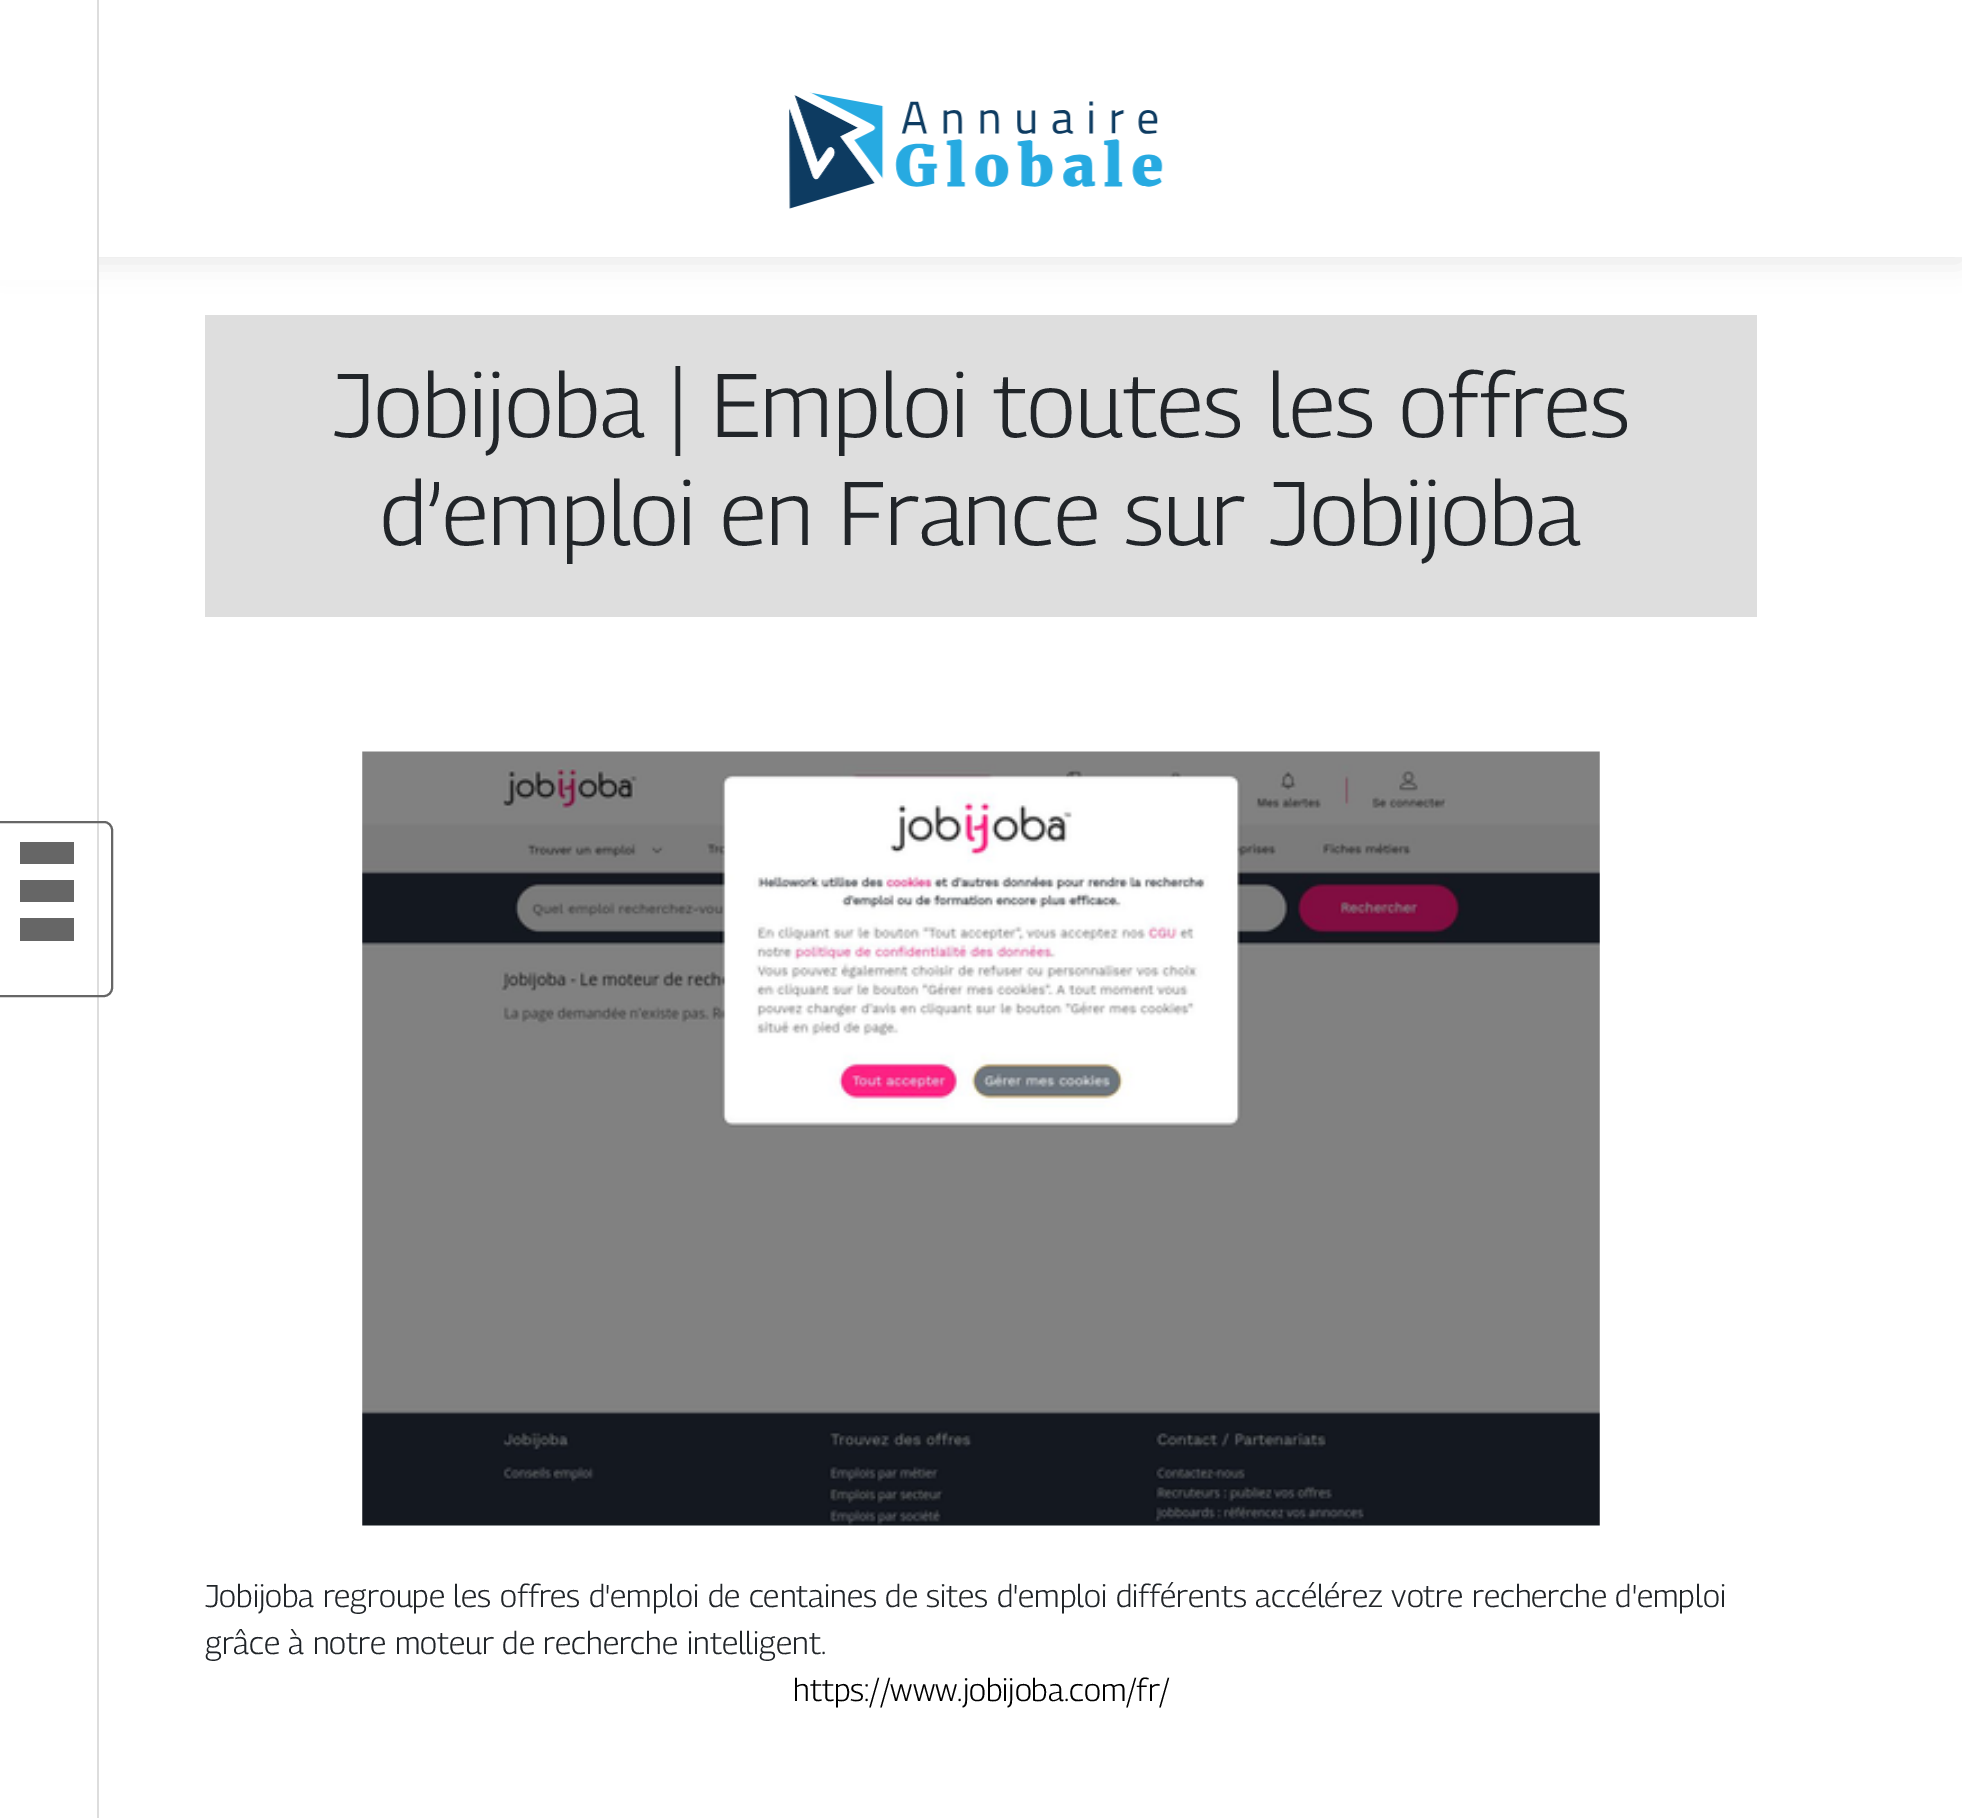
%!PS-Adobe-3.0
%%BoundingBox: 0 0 1962 1818
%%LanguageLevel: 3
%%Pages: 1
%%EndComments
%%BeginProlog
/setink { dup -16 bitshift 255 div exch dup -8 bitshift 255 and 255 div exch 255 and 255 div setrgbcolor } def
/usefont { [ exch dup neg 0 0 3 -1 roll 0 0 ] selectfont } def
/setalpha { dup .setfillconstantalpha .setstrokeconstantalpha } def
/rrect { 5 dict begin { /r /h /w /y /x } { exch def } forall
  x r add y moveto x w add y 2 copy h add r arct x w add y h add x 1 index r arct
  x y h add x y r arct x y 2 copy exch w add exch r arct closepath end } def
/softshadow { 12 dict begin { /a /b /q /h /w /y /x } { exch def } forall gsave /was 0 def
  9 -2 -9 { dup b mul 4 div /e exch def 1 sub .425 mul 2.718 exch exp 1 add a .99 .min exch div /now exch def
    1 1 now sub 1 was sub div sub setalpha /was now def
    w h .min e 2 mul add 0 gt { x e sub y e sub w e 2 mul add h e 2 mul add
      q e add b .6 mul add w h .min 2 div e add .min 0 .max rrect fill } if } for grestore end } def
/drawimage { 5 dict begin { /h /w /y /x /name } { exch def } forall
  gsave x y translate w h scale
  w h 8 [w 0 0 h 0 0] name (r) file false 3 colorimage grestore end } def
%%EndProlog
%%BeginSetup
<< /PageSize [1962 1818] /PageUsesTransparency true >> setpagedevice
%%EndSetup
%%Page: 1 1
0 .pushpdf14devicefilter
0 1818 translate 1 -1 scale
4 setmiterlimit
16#FFFFFF setink
0 0 1962 1818 rectfill
16#000000 setink
0 5 1962 256 0 14.5 0.1 softshadow
[
    [99 0 1863 257 16#FFFFFF]
    [0 0 97 280 16#FFFFFF]
    [97 0 2 1818 16#DDDDDD]
] { aload pop setink rectfill } forall
16#666666 setink
2 setlinewidth
-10 822 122 174 8 rrect stroke
[
    [20 842 54 22 16#666666]
    [20 880 54 22 16#666666]
    [20 918 54 23 16#666666]
] { aload pop setink rectfill } forall
(img1.raw) 789 92 374 117 drawimage
16#DEDEDE setink
205 315 1552 302 rectfill
/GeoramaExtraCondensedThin-Thin 90 usefont
16#212529 setink
333 437 moveto (Jobijoba | Emploi toutes les offres) show
380 545 moveto (d’emploi en France sur Jobijoba) show
(img2.raw) 362 751 1238 775 drawimage
/GeoramaExtraCondensedThin-Thin 31.5 usefont
205 1607 moveto (Jobijoba regroupe les offres d'emploi de centaines de sites d'emploi différents accélérez votre recherche d'emploi) show
205 1654 moveto (grâce à notre moteur de recherche intelligent.) show
16#000000 setink
793 1701 moveto (https://www.jobijoba.com/fr/) show
.poppdf14devicefilter showpage
%%EOF
